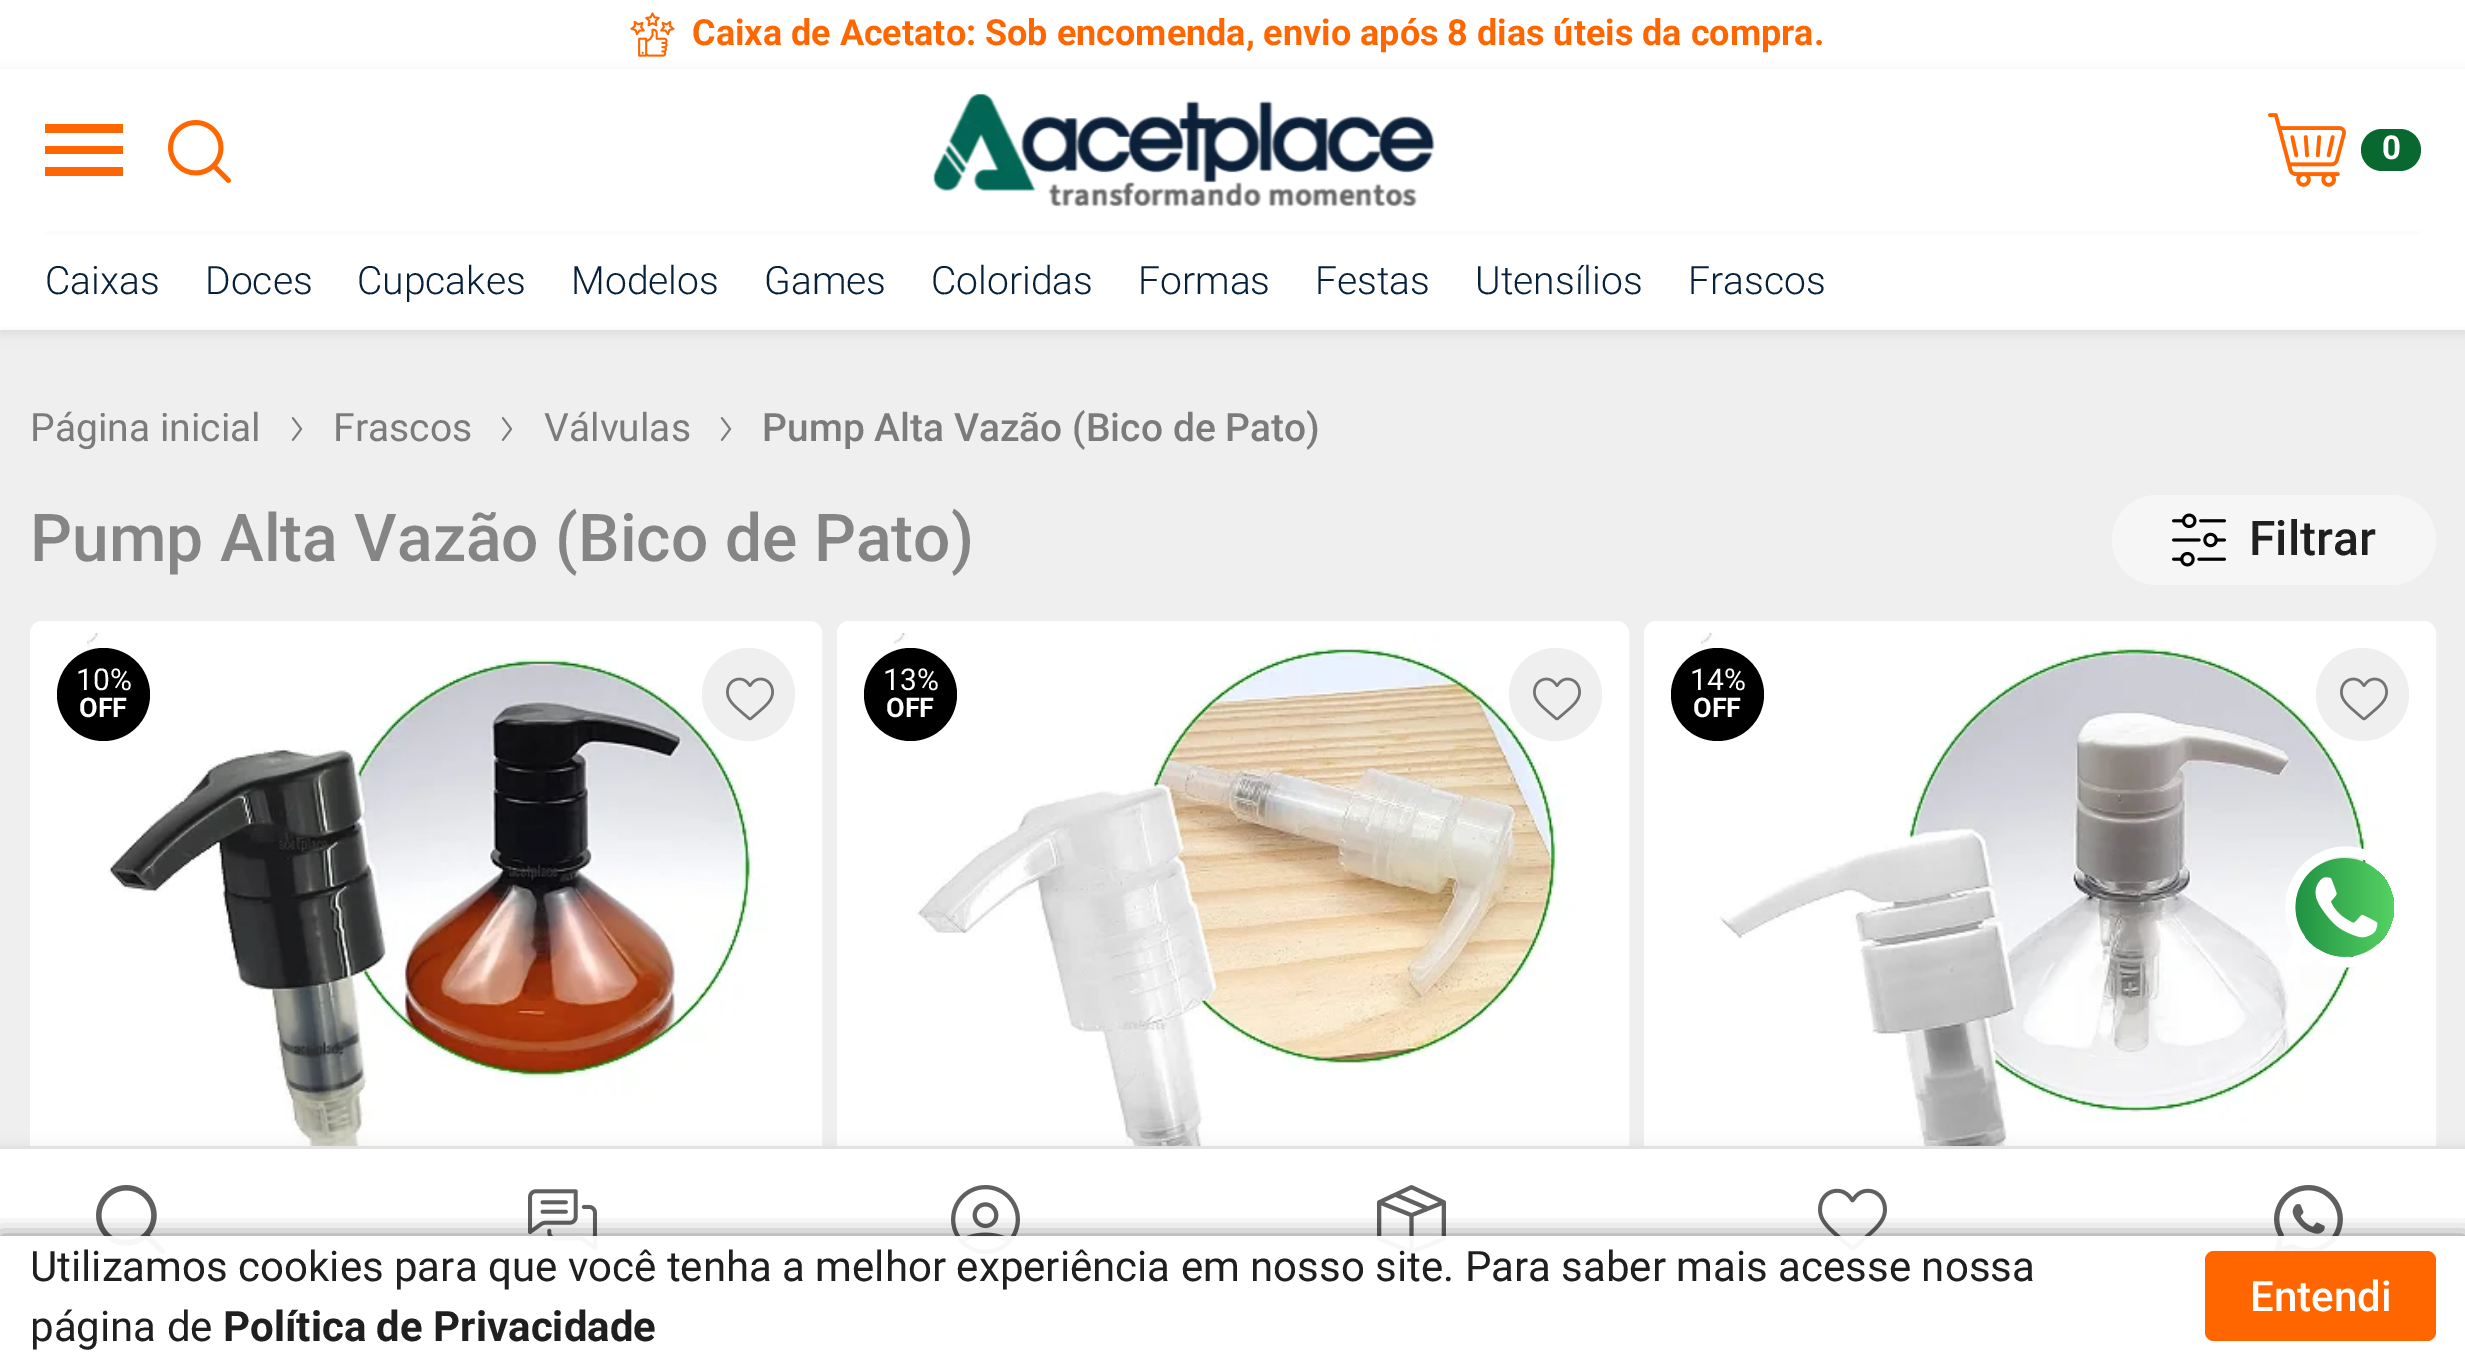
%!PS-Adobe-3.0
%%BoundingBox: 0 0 2465 1355
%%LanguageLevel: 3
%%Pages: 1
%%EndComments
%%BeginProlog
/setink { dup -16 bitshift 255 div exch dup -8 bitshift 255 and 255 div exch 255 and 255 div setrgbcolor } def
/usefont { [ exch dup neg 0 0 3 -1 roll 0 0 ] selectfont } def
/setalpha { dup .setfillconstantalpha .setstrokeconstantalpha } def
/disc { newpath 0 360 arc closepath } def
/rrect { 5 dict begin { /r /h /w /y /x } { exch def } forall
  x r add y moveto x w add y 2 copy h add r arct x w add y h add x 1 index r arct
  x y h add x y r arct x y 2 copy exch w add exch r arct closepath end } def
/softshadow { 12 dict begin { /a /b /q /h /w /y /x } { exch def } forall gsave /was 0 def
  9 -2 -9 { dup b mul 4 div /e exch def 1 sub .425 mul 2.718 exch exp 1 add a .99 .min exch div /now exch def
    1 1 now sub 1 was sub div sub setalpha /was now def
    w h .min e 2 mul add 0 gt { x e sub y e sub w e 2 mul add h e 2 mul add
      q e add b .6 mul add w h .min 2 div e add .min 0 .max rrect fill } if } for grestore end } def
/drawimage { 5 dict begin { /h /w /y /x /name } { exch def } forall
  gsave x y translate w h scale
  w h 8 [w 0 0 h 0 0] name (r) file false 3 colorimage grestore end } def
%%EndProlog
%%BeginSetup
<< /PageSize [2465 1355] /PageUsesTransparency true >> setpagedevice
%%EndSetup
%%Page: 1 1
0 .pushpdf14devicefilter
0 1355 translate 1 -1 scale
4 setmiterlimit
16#EFEFEF setink
0 0 2465 1355 rectfill
16#FFFFFF setink
0 0 2465 69 rectfill
(img1.raw) 630 12 45 45 drawimage
/Roboto-Bold 36 usefont
16#FF6600 setink
692 45 moveto (Caixa de Acetato: Sob encomenda, envio após 8 dias úteis da compra.) show
16#525252 setink
0 72 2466 261 0 6 0.13 softshadow
[
    [0 69 2465 258 16#FFFFFF]
    [0 327 2465 3 16#FCFCFC]
    [45 167 78 9 16#FF6600]
    [45 146 78 8 16#FF6600]
    [45 124 78 9 16#FF6600]
] { aload pop setink rectfill } forall
(img2.raw) 168 120 63 63 drawimage
(img3.raw) 933 94 502 113 drawimage
(img4.raw) 2268 113 78 74 drawimage
16#096830 setink
2361 129 60 42 21 rrect fill
/Roboto-Bold 33 usefont
16#FFFFFF setink
2382 159 moveto (0) show
16#FCFCFC setink
45 231 2376 3 rectfill
/Roboto-Light 39 usefont
16#08213A setink
[
    [(Caixas) 45 294]
    [(Doces) 205 294]
    [(Cupcakes) 357 294]
    [(Modelos) 571 294]
    [(Games) 764 294]
    [(Coloridas) 931 294]
    [(Formas) 1138 294]
    [(Festas) 1315 294]
    [(Utensílios) 1475 294]
    [(Frascos) 1688 294]
] { aload pop moveto show } forall
/Roboto-Regular 39 usefont
16#7B7B7B setink
30 441 moveto (Página inicial) show
(img5.raw) 291 417 12 24 drawimage
333 441 moveto (Frascos) show
(img5.raw) 501 417 12 24 drawimage
544 441 moveto (Válvulas) show
(img5.raw) 720 417 12 24 drawimage
/Roboto-Medium 39 usefont
762 441 moveto (Pump Alta Vazão \(Bico de Pato\)) show
/Roboto-Medium 66 usefont
16#858585 setink
30 561 moveto (Pump Alta Vazão \(Bico de Pato\)) show
16#F6F6F6 setink
2112 495 324 90 45 rrect fill
(img6.raw) 2172 513 54 54 drawimage
/Roboto-Medium 48 usefont
16#201F1F setink
2249 555 moveto (Filtrar) show
16#FFFFFF setink
31.5 622.5 789 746 10.5 rrect gsave fill grestore
3 setlinewidth
stroke
(img7.raw) 87 633 681 513 drawimage
16#000000 setink
103.5 694.5 46.5 disc fill
/Roboto-Regular 30 usefont
16#FFFFFF setink
76 690 moveto (10%) show
/Roboto-Bold 27 usefont
79 717 moveto (OFF) show
16#EFEFEF setink
748.5 694.5 46.5 disc fill
(img8.raw) 726 677 48 44 drawimage
16#FFFFFF setink
838.5 622.5 789 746 10.5 rrect gsave fill grestore
stroke
(img9.raw) 894 633 681 513 drawimage
16#000000 setink
910.5 694.5 46.5 disc fill
/Roboto-Regular 30 usefont
16#FFFFFF setink
883 690 moveto (13%) show
/Roboto-Bold 27 usefont
886 717 moveto (OFF) show
0.75 setalpha
16#EAEAEA setink
1555.5 694.5 46.5 disc fill
1 setalpha
(img10.raw) 1533 677 48 44 drawimage
16#FFFFFF setink
1645.5 622.5 789 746 10.5 rrect gsave fill grestore
stroke
(img11.raw) 1701 633 681 513 drawimage
16#000000 setink
1717.5 694.5 46.5 disc fill
/Roboto-Regular 30 usefont
16#FFFFFF setink
1690 690 moveto (14%) show
/Roboto-Bold 27 usefont
1693 717 moveto (OFF) show
16#EFEFEF setink
2362.5 694.5 46.5 disc fill
(img8.raw) 2340 677 48 44 drawimage
gsave 2344.5 907.5 49.5 disc clip newpath
<< /ShadingType 2 /ColorSpace /DeviceRGB /Coords [2295 908 2394 908] /Extend [true true] /Function << /FunctionType 2 /Domain [0 1] /C0 [0.125 0.569 0.259] /C1 [0.337 0.824 0.388] /N 1 >> >> shfill grestore
(img12.raw) 2285 846 93 122 drawimage
16#525252 setink
0 1146 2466 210 0 6 0.08 softshadow
16#FFFFFF setink
0 1149 2465 206 rectfill
16#E2E2E2 setink
0 1146 2465 3 rectfill
(img13.raw) 96 1185 69 69 drawimage
(img14.raw) 528 1189 69 61 drawimage
(img15.raw) 951 1185 69 69 drawimage
(img16.raw) 1377 1185 69 69 drawimage
(img17.raw) 1818 1188 69 63 drawimage
(img18.raw) 2274 1185 69 66 drawimage
gsave
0 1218 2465 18 rectclip
16#000000 setink
0 1236 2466 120 0 10.5 0.5 softshadow
grestore
0.95 setalpha
16#FFFFFF setink
104 1236 2235 18 rectfill
/Roboto-Regular 42 usefont
1 setalpha
16#201F1F setink
30 1281 moveto (Utilizamos cookies para que você tenha a melhor experiência em nosso site. Para saber mais acesse nossa) show
30 1341 moveto (página de) show
/Roboto-Bold 42 usefont
223 1341 moveto (Política de Privacidade) show
16#FF6600 setink
2205 1251 231 90 9 rrect fill
/Roboto-Medium 42 usefont
16#FFFFFF setink
2250 1311 moveto (Entendi) show
.poppdf14devicefilter showpage
%%EOF
